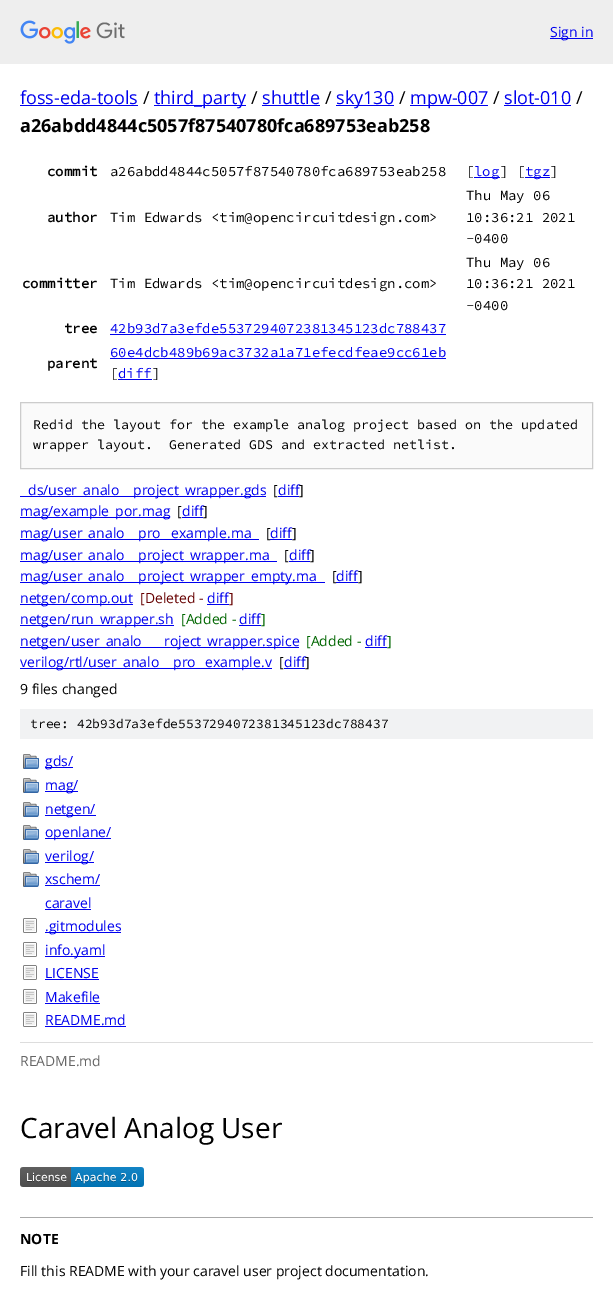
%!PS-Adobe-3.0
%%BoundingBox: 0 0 613 1302
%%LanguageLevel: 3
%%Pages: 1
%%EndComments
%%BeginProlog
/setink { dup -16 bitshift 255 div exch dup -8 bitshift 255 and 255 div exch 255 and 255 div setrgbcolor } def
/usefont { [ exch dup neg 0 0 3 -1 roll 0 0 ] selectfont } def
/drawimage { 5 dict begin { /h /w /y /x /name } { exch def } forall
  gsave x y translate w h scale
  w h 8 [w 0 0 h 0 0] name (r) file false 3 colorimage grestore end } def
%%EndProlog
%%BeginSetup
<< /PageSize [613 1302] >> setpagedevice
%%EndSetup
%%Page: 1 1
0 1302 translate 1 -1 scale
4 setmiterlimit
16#FFFFFF setink
0 0 613 1302 rectfill
16#EEEEEE setink
0 0 613 64 rectfill
(img1.raw) 20 20 105 24 drawimage
16#0000EE setink
550 38 43 1 rectfill
/OpenSans-Regular 14 usefont
550 37 moveto (Sign in) show
/OpenSans-Regular 18 usefont
20 104 moveto (foss-eda-tools) show
20 105 118 1 rectfill
16#000000 setink
143 104 moveto (/) show
16#0000EE setink
154 105 92 1 rectfill
154 104 moveto (third_party) show
16#000000 setink
251 104 moveto (/) show
16#0000EE setink
262 104 moveto (shuttle) show
262 105 58 1 rectfill
16#000000 setink
325 104 moveto (/) show
16#0000EE setink
336 105 58 1 rectfill
336 104 moveto (sky130) show
16#000000 setink
399 104 moveto (/) show
16#0000EE setink
410 105 78 1 rectfill
410 104 moveto (mpw-007) show
16#000000 setink
493 104 moveto (/) show
16#0000EE setink
504 104 moveto (slot-010) show
504 105 67 1 rectfill
16#000000 setink
576 104 moveto (/) show
/OpenSans-Bold 18 usefont
20 132 moveto (a26abdd4844c5057f87540780fca689753eab258) show
/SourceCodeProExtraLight-Bold 14 usefont
47 176 moveto (commit) show
/SourceCodeProExtraLight-ExtraLight 14 usefont
110 176 moveto (a26abdd4844c5057f87540780fca689753eab258) show
466 176 moveto ([) show
16#0000EE setink
474 177 26 1 rectfill
474 176 moveto (log) show
16#000000 setink
500 176 moveto (] [) show
16#0000EE setink
525 177 25 1 rectfill
525 176 moveto (tgz) show
16#000000 setink
550 176 moveto (]) show
/SourceCodeProExtraLight-Bold 14 usefont
47 222 moveto (author) show
/SourceCodeProExtraLight-ExtraLight 14 usefont
[
    [(Tim Edwards <tim@opencircuitdesign.com>) 110 222]
    [(Thu May 06) 466 200]
    [(10:36:21 2021) 466 222]
    [(-0400) 466 243]
] { aload pop moveto show } forall
/SourceCodeProExtraLight-Bold 14 usefont
22 288 moveto (committer) show
/SourceCodeProExtraLight-ExtraLight 14 usefont
[
    [(Tim Edwards <tim@opencircuitdesign.com>) 110 288]
    [(Thu May 06) 466 267]
    [(10:36:21 2021) 466 288]
    [(-0400) 466 310]
] { aload pop moveto show } forall
/SourceCodeProExtraLight-Bold 14 usefont
64 333 moveto (tree) show
/SourceCodeProExtraLight-ExtraLight 14 usefont
16#0000EE setink
110 333 moveto (42b93d7a3efde5537294072381345123dc788437) show
110 334 336 1 rectfill
/SourceCodeProExtraLight-Bold 14 usefont
16#000000 setink
47 368 moveto (parent) show
/SourceCodeProExtraLight-ExtraLight 14 usefont
16#0000EE setink
110 357 moveto (60e4dcb489b69ac3732a1a71efecdfeae9cc61eb) show
110 358 336 1 rectfill
16#000000 setink
110 378 moveto ([) show
16#0000EE setink
118 379 34 1 rectfill
118 378 moveto (diff) show
16#000000 setink
152 378 moveto (]) show
16#FAFAFA setink
20.5 402.5 moveto 592.5 402.5 lineto 592.5 468.5 lineto 20.5 468.5 lineto closepath gsave fill grestore
16#CCCCCC setink
stroke
/SourceCodeProExtraLight-ExtraLight 13.35 usefont
16#000000 setink
33 429 moveto (Redid the layout for the example analog project based on the updated) show
33 449 moveto (wrapper layout.  Generated GDS and extracted netlist.) show
16#0000EE setink
20 496 246 1 rectfill
/OpenSans-Regular 14 usefont
28 495 moveto (ds/user_analo) show
133 495 moveto (project_wrapper.gds) show
16#000000 setink
273 495 moveto ([) show
16#0000EE setink
278 496 21 1 rectfill
278 495 moveto (diff) show
16#000000 setink
299 495 moveto (]) show
16#0000EE setink
20 517 150 1 rectfill
20 516 moveto (mag/example_por.mag) show
16#000000 setink
177 516 moveto ([) show
16#0000EE setink
182 517 21 1 rectfill
182 516 moveto (diff) show
16#000000 setink
203 516 moveto (]) show
16#0000EE setink
20 539 239 1 rectfill
[
    [(mag/user_analo) 20 538]
    [(pro) 138 538]
    [(example.ma) 171 538]
] { aload pop moveto show } forall
16#000000 setink
266 538 moveto ([) show
16#0000EE setink
270 539 22 1 rectfill
270 538 moveto (diff) show
16#000000 setink
292 538 moveto (]) show
16#0000EE setink
20 561 257 1 rectfill
20 560 moveto (mag/user_analo) show
138 560 moveto (project_wrapper.ma) show
16#000000 setink
284 560 moveto ([) show
16#0000EE setink
289 561 21 1 rectfill
289 560 moveto (diff) show
16#000000 setink
310 560 moveto (]) show
16#0000EE setink
20 582 305 1 rectfill
20 581 moveto (mag/user_analo) show
138 581 moveto (project_wrapper_empty.ma) show
16#000000 setink
332 581 moveto ([) show
16#0000EE setink
336 582 22 1 rectfill
336 581 moveto (diff) show
16#000000 setink
358 581 moveto (]) show
16#0000EE setink
20 604 113 1 rectfill
20 603 moveto (netgen/comp.out) show
16#660000 setink
140 603 moveto ([Deleted -) show
16#0000EE setink
207 603 moveto (diff) show
16#660000 setink
229 603 moveto (]) show
16#0000EE setink
207 604 22 1 rectfill
20 625 154 1 rectfill
20 624 moveto (netgen/run_wrapper.sh) show
16#006600 setink
181 624 moveto ([Added -) show
16#0000EE setink
239 624 moveto (diff) show
16#006600 setink
261 624 moveto (]) show
16#0000EE setink
239 625 22 1 rectfill
20 647 279 1 rectfill
20 646 moveto (netgen/user_analo) show
164 646 moveto (roject_wrapper.spice) show
16#006600 setink
306 646 moveto ([Added -) show
16#0000EE setink
365 646 moveto (diff) show
16#006600 setink
387 646 moveto (]) show
16#0000EE setink
365 647 22 1 rectfill
20 668 252 1 rectfill
[
    [(verilog/rtl/user_analo) 20 667]
    [(pro) 173 667]
    [(example.v) 205 667]
] { aload pop moveto show } forall
16#000000 setink
279 667 moveto ([) show
16#0000EE setink
284 668 21 1 rectfill
284 667 moveto (diff) show
16#000000 setink
305 667 moveto (]) show
20 694 moveto (9 files changed) show
16#F1F2F3 setink
20 709 573 30 rectfill
/SourceCodeProExtraLight-ExtraLight 13 usefont
16#000000 setink
30 728 moveto (tree: 42b93d7a3efde5537294072381345123dc788437) show
(img2.raw) 23 754 16 15 drawimage
16#0000EE setink
45 767 28 1 rectfill
/OpenSans-Regular 14 usefont
45 766 moveto (gds/) show
(img2.raw) 23 778 16 15 drawimage
45 791 33 1 rectfill
45 790 moveto (mag/) show
(img2.raw) 23 802 16 15 drawimage
45 815 51 1 rectfill
45 814 moveto (netgen/) show
(img2.raw) 23 825 16 15 drawimage
45 838 66 1 rectfill
45 837 moveto (openlane/) show
(img2.raw) 23 849 16 15 drawimage
45 862 49 1 rectfill
45 861 moveto (verilog/) show
(img2.raw) 23 872 16 15 drawimage
45 884 moveto (xschem/) show
45 885 55 1 rectfill
45 908 moveto (caravel) show
45 909 46 1 rectfill
(img3.raw) 23 918 14 15 drawimage
45 932 76 1 rectfill
45 931 moveto (.gitmodules) show
(img3.raw) 23 942 14 15 drawimage
45 956 60 1 rectfill
45 955 moveto (info.yaml) show
(img3.raw) 23 965 14 15 drawimage
45 978 moveto (LICENSE) show
45 979 54 1 rectfill
(img3.raw) 23 989 14 15 drawimage
45 1002 moveto (Makefile) show
45 1003 55 1 rectfill
(img3.raw) 23 1012 14 15 drawimage
45 1025 moveto (README.md) show
45 1026 81 1 rectfill
16#DDDDDD setink
20 1042 573 1 rectfill
16#666666 setink
20 1066 moveto (README.md) show
/OpenSans-Regular 28 usefont
16#000000 setink
20 1138 moveto (Caravel Analog User) show
(img4.raw) 20 1167 124 20 drawimage
16#AAAAAA setink
20 1217 573 1 rectfill
/OpenSans-Bold 14 usefont
16#000000 setink
20 1244 moveto (NOTE) show
/OpenSans-Regular 14 usefont
20 1276 moveto (Fill this README with your caravel user project documentation.) show
showpage
%%EOF
